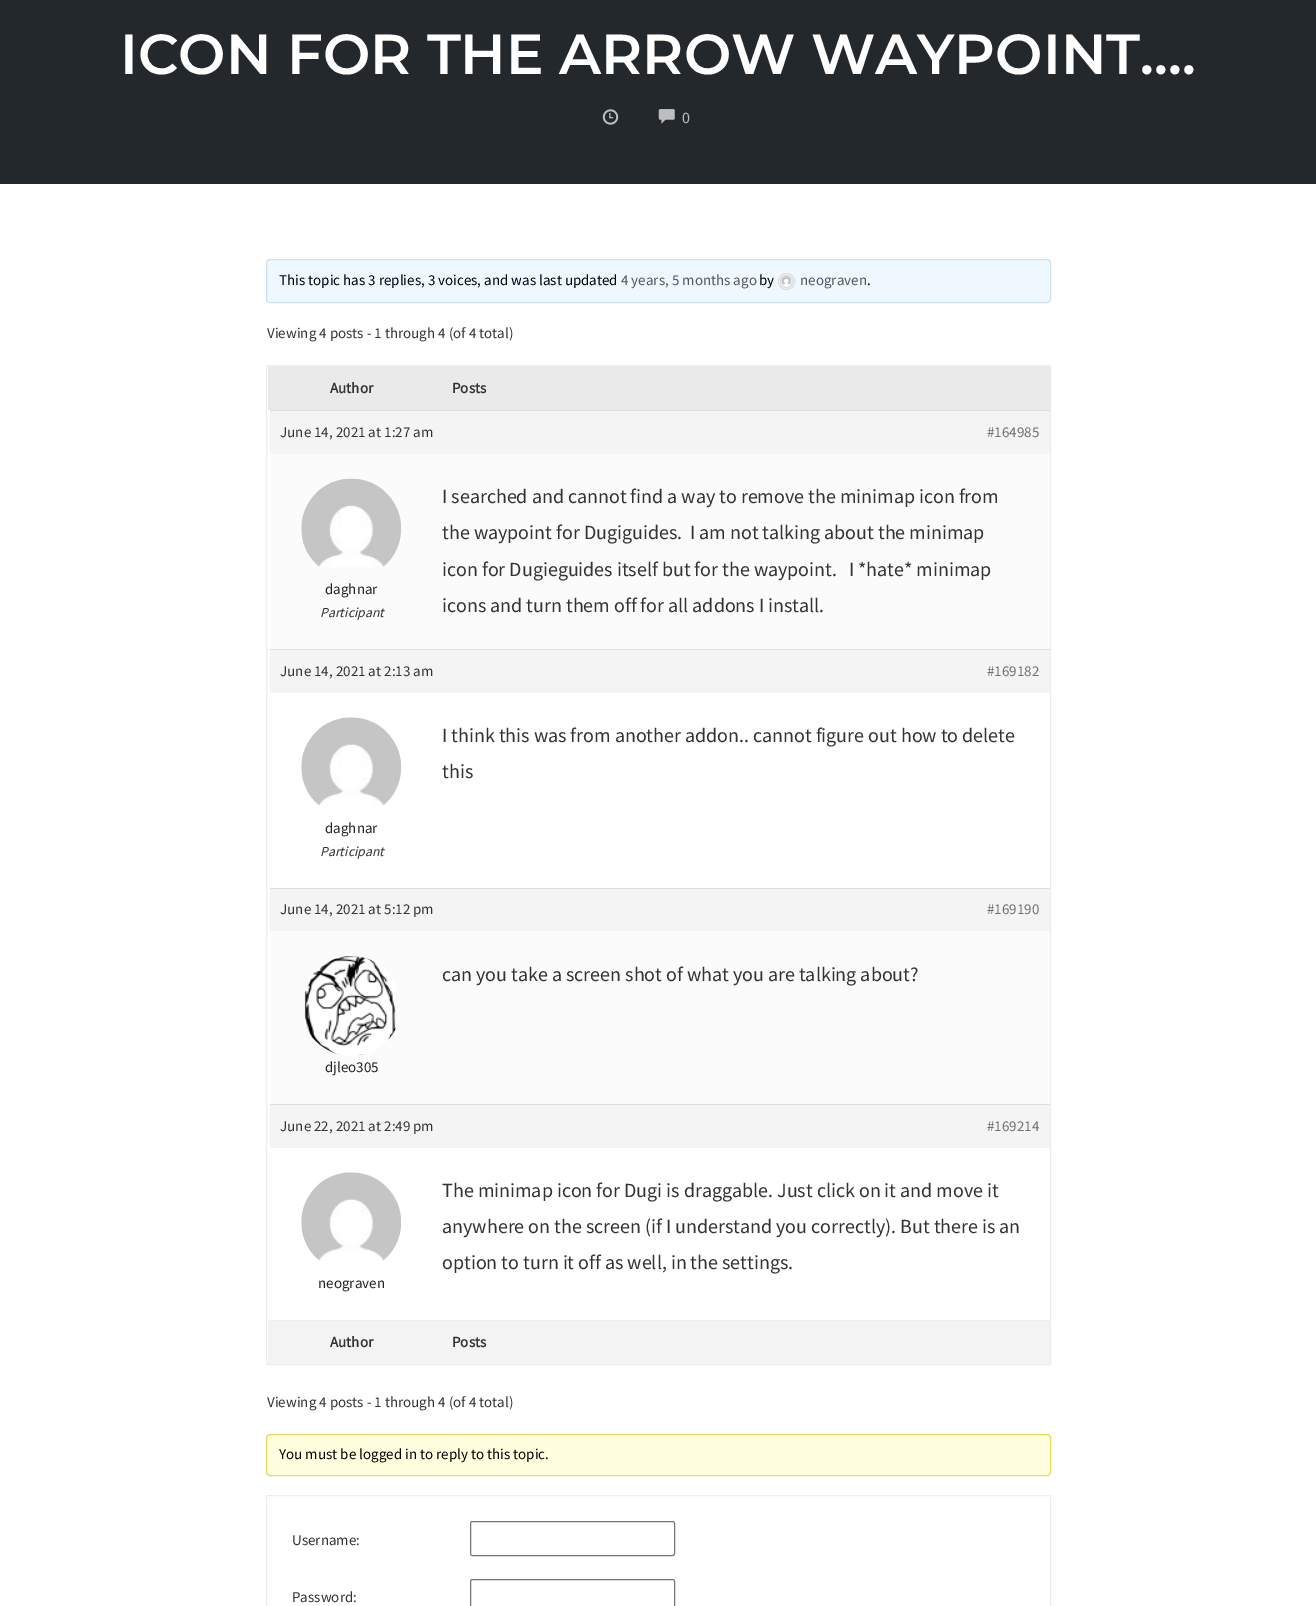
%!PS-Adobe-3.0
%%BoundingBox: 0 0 1316 1606
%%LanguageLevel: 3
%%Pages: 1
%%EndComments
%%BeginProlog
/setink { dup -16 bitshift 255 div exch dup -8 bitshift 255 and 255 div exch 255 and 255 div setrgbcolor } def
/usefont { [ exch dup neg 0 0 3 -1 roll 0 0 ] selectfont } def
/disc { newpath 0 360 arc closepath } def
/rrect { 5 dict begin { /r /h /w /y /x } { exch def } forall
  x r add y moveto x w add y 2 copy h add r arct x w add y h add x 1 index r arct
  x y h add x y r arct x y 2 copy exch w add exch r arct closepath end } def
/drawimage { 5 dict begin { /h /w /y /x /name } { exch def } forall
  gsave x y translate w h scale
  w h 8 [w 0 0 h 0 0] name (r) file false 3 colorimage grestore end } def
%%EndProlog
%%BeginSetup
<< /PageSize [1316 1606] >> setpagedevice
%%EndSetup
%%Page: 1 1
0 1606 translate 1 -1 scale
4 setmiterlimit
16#FFFFFF setink
0 0 1316 1606 rectfill
16#23282D setink
0 0 1316 184 rectfill
/Montserrat-SemiBold 56.25 usefont
16#FFFFFF setink
120 74 moveto (ICON FOR THE ARROW WAYPOINT….) show
(img1.raw) 602 109 17 16 drawimage
(img2.raw) 658 109 17 15 drawimage
/SourceSansPro-Regular 16 usefont
16#BDBFC0 setink
682 123 moveto (0) show
16#F0F8FF setink
266.5 259.5 784 43 3.5 rrect gsave fill grestore
16#CEE1EF setink
stroke
/SourceSansPro-Regular 15 usefont
16#000000 setink
279 285 moveto (This topic has 3 replies, 3 voices, and was last updated) show
16#555555 setink
621 285 moveto (4 years, 5 months ago) show
16#000000 setink
759 285 moveto (by) show
16#DDDDDD setink
786.5 281.5 8 disc stroke
786.5 281.5 6 disc stroke
(img3.raw) 781 276 10 10 drawimage
16#555555 setink
800 285 moveto (neograven) show
16#000000 setink
867 285 moveto (.) show
16#333333 setink
267 338 moveto (Viewing 4 posts - 1 through 4 \(of 4 total\)) show
16#EEEEEE setink
266.5 365.5 784 999 rectstroke
16#EAEAEA setink
268 367 782 43 rectfill
16#EEEEEE setink
268 366 782 1 rectfill
/SourceSansPro-Bold 15 usefont
16#333333 setink
330 393 moveto (Author) show
452 393 moveto (Posts) show
16#F4F4F4 setink
270 411 780 43 rectfill
16#DDDDDD setink
270 410 780 1 rectfill
/SourceSansPro-Regular 15 usefont
16#333333 setink
280 437 moveto (June 14, 2021 at 1:27 am) show
16#707070 setink
987 437 moveto (#164985) show
16#FBFBFB setink
270 454 780 195 rectfill
(img4.raw) 301 478 100 89 drawimage
16#222222 setink
325 594 moveto (daghnar) show
/SourceSansPro-Italic 13.75 usefont
16#333333 setink
320 617 moveto (Participant) show
/SourceSansPro-Regular 20 usefont
[
    [(I searched and cannot find a way to remove the minimap icon from) 442 503]
    [(the waypoint for Dugiguides.  I am not talking about the minimap) 442 539]
    [(icon for Dugieguides itself but for the waypoint.   I *hate* minimap) 442 576]
    [(icons and turn them off for all addons I install.) 442 612]
] { aload pop moveto show } forall
16#F4F4F4 setink
270 650 780 43 rectfill
16#DDDDDD setink
270 649 780 1 rectfill
/SourceSansPro-Regular 15 usefont
16#333333 setink
280 676 moveto (June 14, 2021 at 2:13 am) show
16#707070 setink
987 676 moveto (#169182) show
/SourceSansPro-Regular 20 usefont
16#333333 setink
442 742 moveto (I think this was from another addon.. cannot figure out how to delete) show
442 778 moveto (this) show
(img5.raw) 301 717 101 89 drawimage
/SourceSansPro-Regular 15 usefont
16#222222 setink
325 833 moveto (daghnar) show
/SourceSansPro-Italic 13.75 usefont
16#333333 setink
320 856 moveto (Participant) show
16#F4F4F4 setink
270 889 780 42 rectfill
16#DDDDDD setink
270 888 780 1 rectfill
/SourceSansPro-Regular 15 usefont
16#333333 setink
280 914 moveto (June 14, 2021 at 5:12 pm) show
16#707070 setink
987 914 moveto (#169190) show
16#FBFBFB setink
270 931 780 173 rectfill
/SourceSansPro-Regular 20 usefont
16#333333 setink
442 981 moveto (can you take a screen shot of what you are talking about?) show
(img6.raw) 304 956 92 100 drawimage
/SourceSansPro-Regular 15 usefont
16#222222 setink
325 1072 moveto (djleo305) show
16#F4F4F4 setink
270 1105 780 43 rectfill
16#DDDDDD setink
270 1104 780 1 rectfill
16#333333 setink
280 1131 moveto (June 22, 2021 at 2:49 pm) show
16#707070 setink
987 1131 moveto (#169214) show
/SourceSansPro-Regular 20 usefont
16#333333 setink
[
    [(The minimap icon for Dugi is draggable. Just click on it and move it) 442 1197]
    [(anywhere on the screen \(if I understand you correctly\). But there is an) 442 1233]
    [(option to turn it off as well, in the settings.) 442 1269]
] { aload pop moveto show } forall
(img5.raw) 301 1172 101 89 drawimage
/SourceSansPro-Regular 15 usefont
16#222222 setink
318 1288 moveto (neograven) show
16#F3F3F3 setink
268 1321 782 43 rectfill
16#EEEEEE setink
268 1320 782 1 rectfill
/SourceSansPro-Bold 15 usefont
16#333333 setink
330 1347 moveto (Author) show
452 1347 moveto (Posts) show
/SourceSansPro-Regular 15 usefont
267 1407 moveto (Viewing 4 posts - 1 through 4 \(of 4 total\)) show
16#FFFFE0 setink
266.5 1434.5 784 41 3.5 rrect gsave fill grestore
16#E6DB55 setink
stroke
16#000000 setink
279 1459 moveto (You must be logged in to reply to this topic.) show
16#EEEEEE setink
266.5 1495.5 784 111 rectstroke
16#333333 setink
292 1545 moveto (Username:) show
16#767676 setink
470.5 1521.5 204 34 2 rrect stroke
16#333333 setink
292 1602 moveto (Password:) show
16#767676 setink
470.5 1579.5 204 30 2 rrect stroke
showpage
%%EOF
